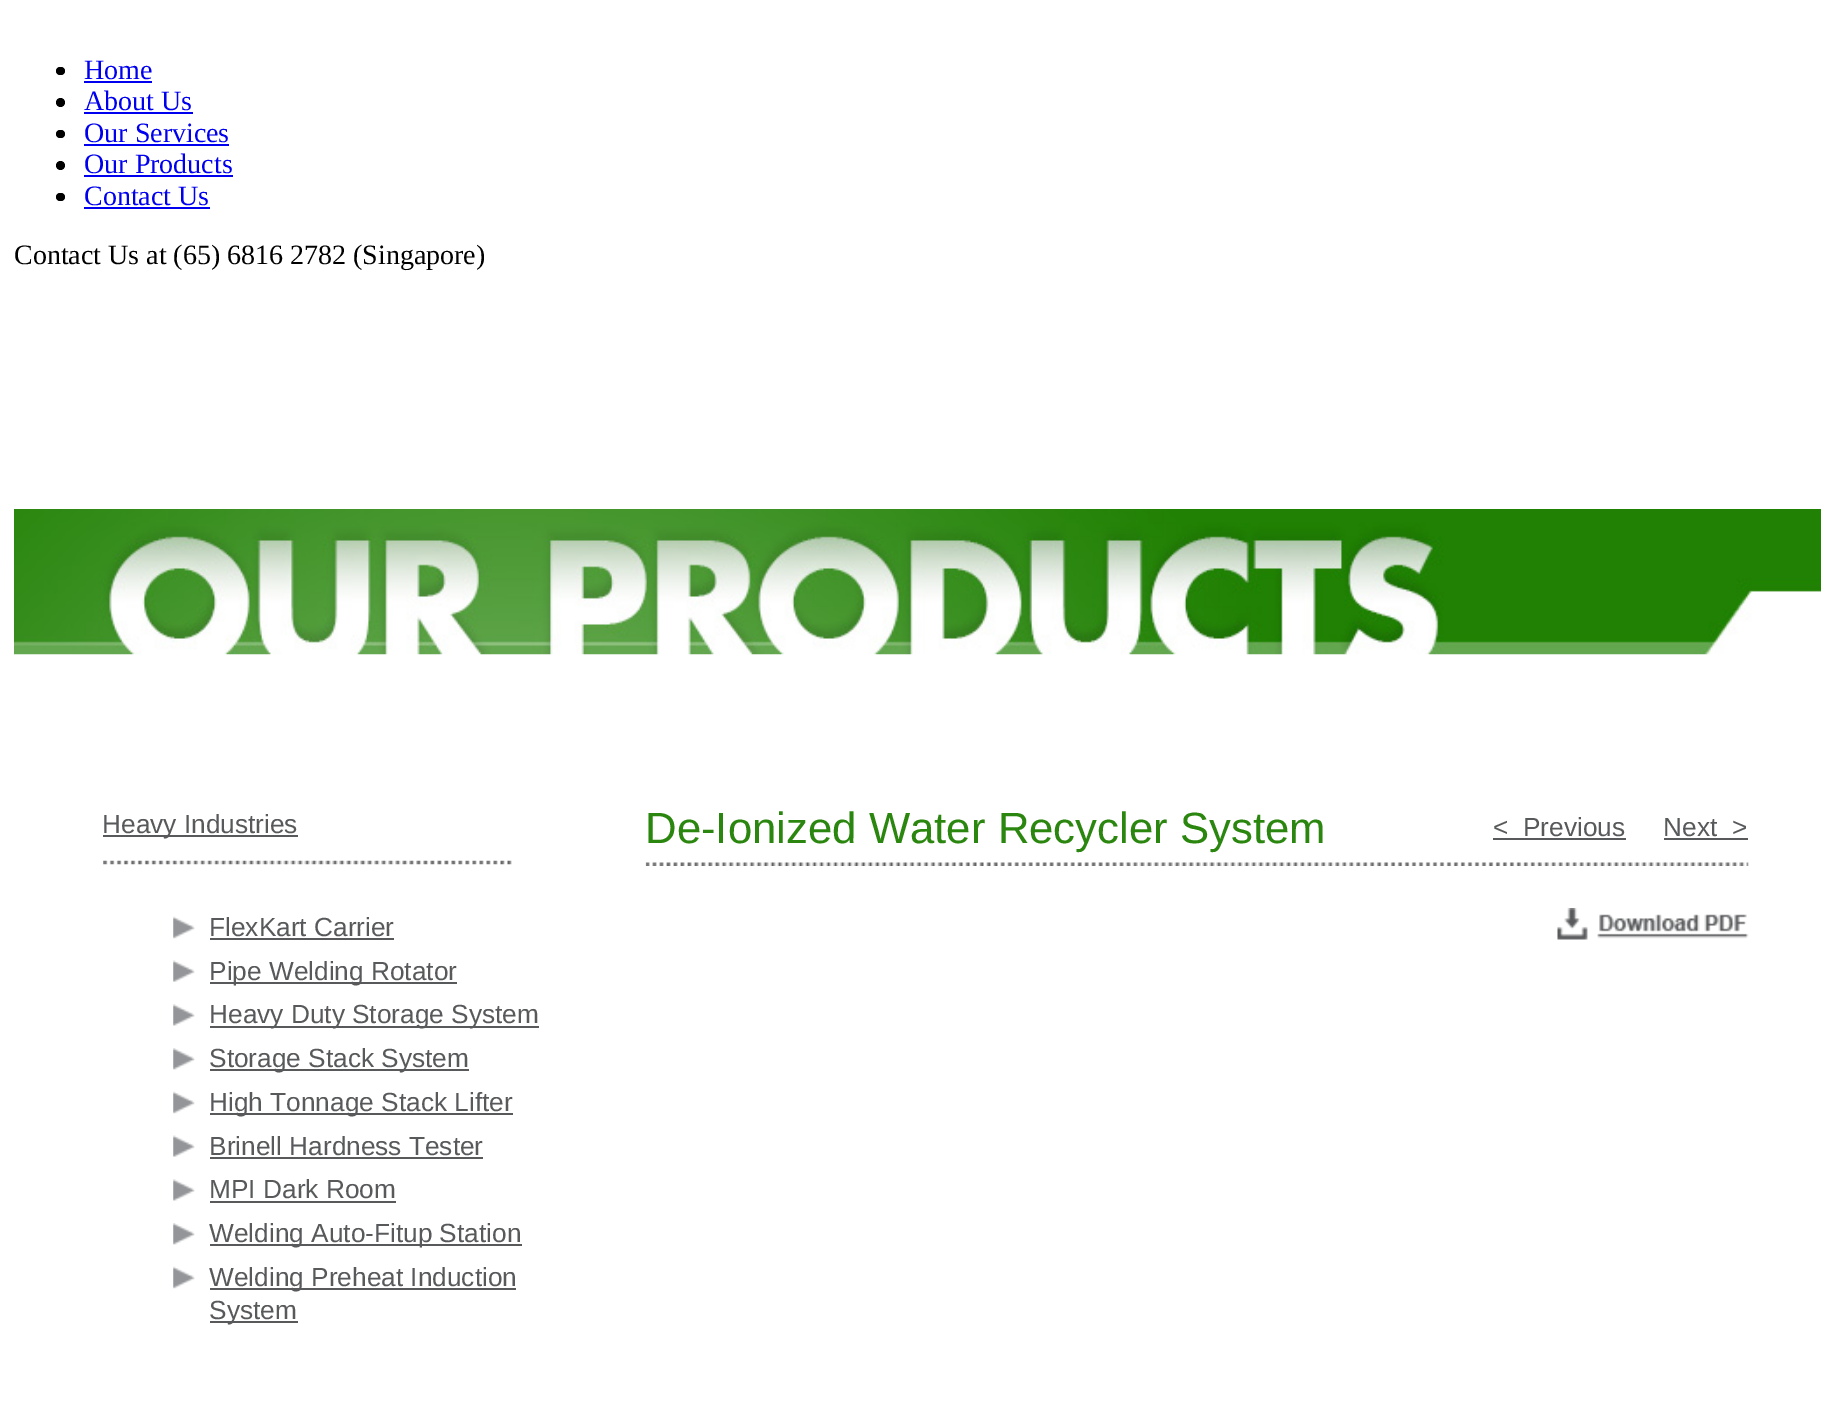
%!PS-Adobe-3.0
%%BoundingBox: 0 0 1821 1403
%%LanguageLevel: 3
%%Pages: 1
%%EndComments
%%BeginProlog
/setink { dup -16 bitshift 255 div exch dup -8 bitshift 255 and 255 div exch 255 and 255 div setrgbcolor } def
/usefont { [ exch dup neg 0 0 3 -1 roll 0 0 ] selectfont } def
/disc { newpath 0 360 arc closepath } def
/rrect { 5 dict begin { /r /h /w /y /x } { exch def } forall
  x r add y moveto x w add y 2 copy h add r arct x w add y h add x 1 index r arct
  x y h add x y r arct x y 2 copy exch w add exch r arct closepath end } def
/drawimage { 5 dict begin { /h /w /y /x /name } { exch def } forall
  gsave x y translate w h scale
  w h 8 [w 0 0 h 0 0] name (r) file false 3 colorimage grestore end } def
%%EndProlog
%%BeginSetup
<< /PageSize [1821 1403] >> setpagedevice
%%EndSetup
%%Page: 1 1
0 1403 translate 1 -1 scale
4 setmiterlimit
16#FFFFFF setink
0 0 1821 1403 rectfill
16#000000 setink
56 67 9 8 4 rrect fill
/LiberationSerif-Regular 28 usefont
16#0000EE setink
84 79 moveto (Home) show
84 81 68 2 rectfill
16#000000 setink
60.5 102.5 4.5 disc fill
16#0000EE setink
84 110 moveto (About Us) show
84 112 109 2 rectfill
16#000000 setink
56 130 9 8 4 rrect fill
16#0000EE setink
84 142 moveto (Our Services) show
84 144 145 2 rectfill
16#000000 setink
60.5 165.5 4.5 disc fill
16#0000EE setink
84 173 moveto (Our Products) show
84 175 149 2 rectfill
16#000000 setink
56 193 9 8 4 rrect fill
16#0000EE setink
84 205 moveto (Contact Us) show
84 207 126 2 rectfill
16#000000 setink
14 264 moveto (Contact Us at \(65\) 6816 2782 \(Singapore\)) show
(img1.raw) 14 509 1807 146 drawimage
(img2.raw) 103 860 409 5 drawimage
16#58595B setink
103 835 195 2 rectfill
/LiberationSans-Regular 26.25 usefont
102 833 moveto (Heavy Industries) show
(img3.raw) 173 916 22 23 drawimage
209 936 moveto (FlexKart Carrier) show
210 938 184 2 rectfill
(img4.raw) 173 960 22 22 drawimage
210 982 247 2 rectfill
209 980 moveto (Pipe Welding Rotator) show
(img5.raw) 173 1004 22 22 drawimage
210 1026 329 2 rectfill
209 1023 moveto (Heavy Duty Storage System) show
(img6.raw) 173 1048 22 22 drawimage
210 1069 259 2 rectfill
209 1067 moveto (Storage Stack System) show
(img3.raw) 173 1091 22 23 drawimage
210 1113 303 2 rectfill
209 1111 moveto (High Tonnage Stack Lifter) show
(img4.raw) 173 1135 22 22 drawimage
209 1155 moveto (Brinell Hardness Tester) show
210 1157 273 2 rectfill
(img5.raw) 173 1179 22 22 drawimage
209 1198 moveto (MPI Dark Room) show
210 1201 186 2 rectfill
(img6.raw) 173 1223 22 22 drawimage
210 1244 312 2 rectfill
209 1242 moveto (Welding Auto-Fitup Station) show
(img3.raw) 173 1266 22 23 drawimage
210 1288 306 2 rectfill
209 1286 moveto (Welding Preheat Induction) show
210 1321 88 2 rectfill
209 1319 moveto (System) show
(img7.raw) 645 862 1104 4 drawimage
/LiberationSans-Regular 43.75 usefont
16#2A860E setink
645 843 moveto (De-Ionized Water Recycler System) show
/LiberationSans-Regular 26.25 usefont
16#58595B setink
1493 836 moveto (<  Previous) show
1493 838 133 2 rectfill
1663 836 moveto (Next  >) show
1664 838 84 2 rectfill
(img8.raw) 1557 908 192 32 drawimage
showpage
%%EOF
